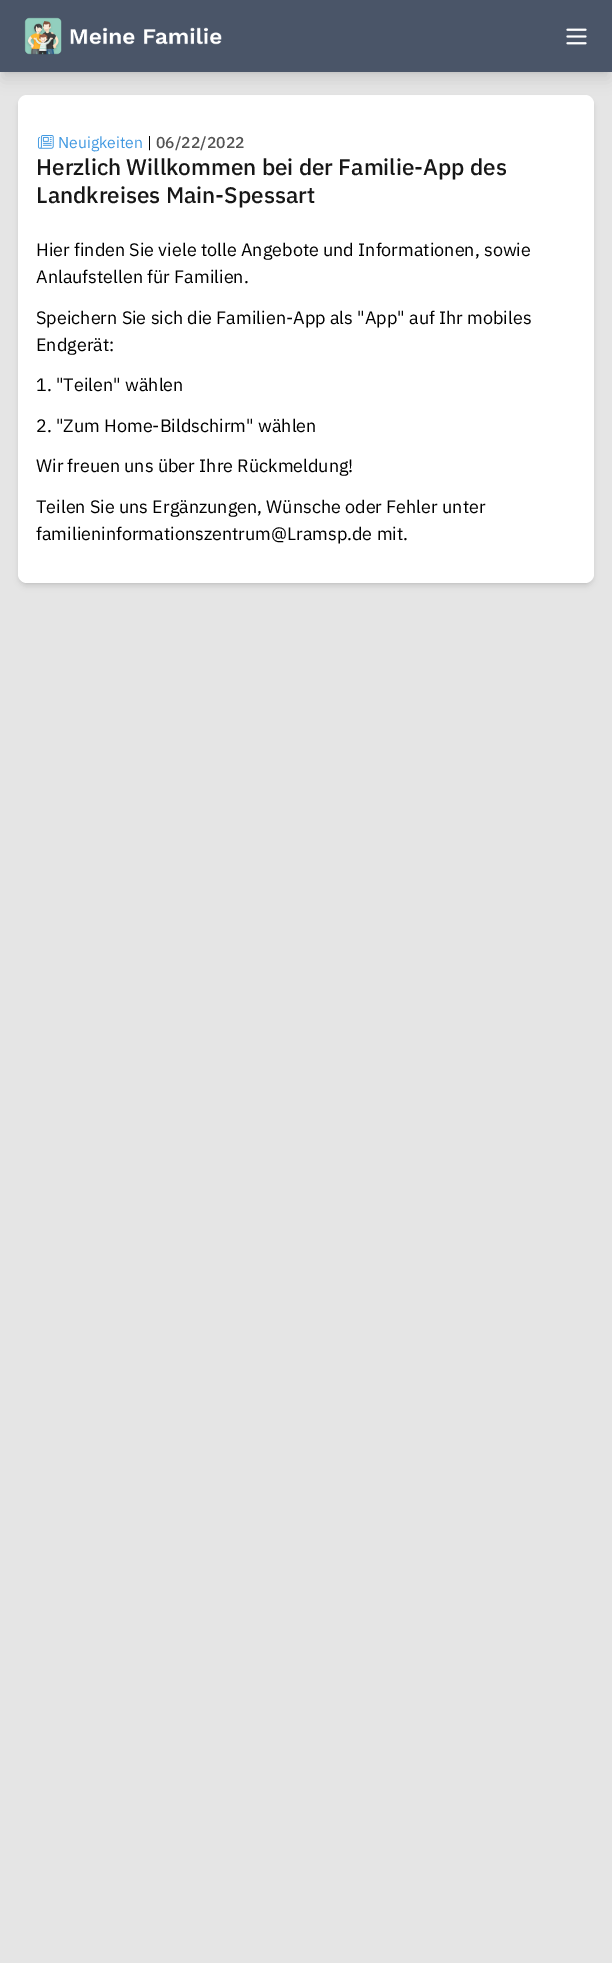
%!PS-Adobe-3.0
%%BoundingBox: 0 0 612 1963
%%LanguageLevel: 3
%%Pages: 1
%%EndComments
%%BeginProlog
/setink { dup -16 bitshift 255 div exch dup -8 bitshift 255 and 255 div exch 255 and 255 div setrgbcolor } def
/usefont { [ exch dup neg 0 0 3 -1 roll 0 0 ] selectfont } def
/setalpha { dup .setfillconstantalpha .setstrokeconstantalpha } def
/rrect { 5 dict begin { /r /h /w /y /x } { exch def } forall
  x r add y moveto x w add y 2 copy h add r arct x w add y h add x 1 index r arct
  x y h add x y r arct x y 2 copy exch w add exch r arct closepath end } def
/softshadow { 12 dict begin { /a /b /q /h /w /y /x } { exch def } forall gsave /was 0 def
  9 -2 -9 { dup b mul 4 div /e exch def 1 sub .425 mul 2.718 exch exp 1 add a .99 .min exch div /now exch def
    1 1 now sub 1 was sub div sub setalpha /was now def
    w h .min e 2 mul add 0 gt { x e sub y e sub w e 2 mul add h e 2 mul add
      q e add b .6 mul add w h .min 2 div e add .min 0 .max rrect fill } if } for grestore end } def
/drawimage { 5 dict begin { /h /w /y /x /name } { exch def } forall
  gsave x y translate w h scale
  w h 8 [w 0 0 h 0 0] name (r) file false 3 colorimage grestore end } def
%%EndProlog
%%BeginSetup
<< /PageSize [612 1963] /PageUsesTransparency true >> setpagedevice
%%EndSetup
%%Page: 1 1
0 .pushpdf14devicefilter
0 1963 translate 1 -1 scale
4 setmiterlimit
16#E5E5E5 setink
0 0 612 1963 rectfill
16#000000 setink
4 8 604 64 0 3 0.1 softshadow
20 99 572 484 7 2 0.1 softshadow
19 100 574 486 8 3 0.1 softshadow
16#FFFFFF setink
18 95 576 488 9 rrect fill
16#000000 setink
3 13 606 66 0 7.5 0.1 softshadow
16#4A5568 setink
0 0 612 72 rectfill
(img1.raw) 24 17 198 38 drawimage
(img2.raw) 566 28 21 17 drawimage
(img3.raw) 37 135 17 14 drawimage
/IBMPlexSans-Regular 15.75 usefont
16#4299E1 setink
58 148 moveto (Neuigkeiten) show
16#000000 setink
147 148 moveto (|) show
/IBMPlexSans-Medium 15.75 usefont
16#525252 setink
156 148 moveto (06/22/2022) show
/IBMPlexSans-Medium 22.5 usefont
16#171717 setink
36 175 moveto (Herzlich Willkommen bei der Familie-App des) show
36 203 moveto (Landkreises Main-Spessart) show
/IBMPlexSans-Regular 18 usefont
16#000000 setink
[
    [(Hier finden Sie viele tolle Angebote und Informationen, sowie) 36 256]
    [(Anlaufstellen für Familien.) 36 283]
    [(Speichern Sie sich die Familien-App als "App" auf Ihr mobiles) 36 324]
    [(Endgerät:) 36 351]
    [(1. "Teilen" wählen) 36 391]
    [(2. "Zum Home-Bildschirm" wählen) 36 432]
    [(Wir freuen uns über Ihre Rückmeldung!) 36 472]
    [(Teilen Sie uns Ergänzungen, Wünsche oder Fehler unter) 36 513]
    [(familieninformationszentrum@Lramsp.de mit.) 36 540]
] { aload pop moveto show } forall
.poppdf14devicefilter showpage
%%EOF
